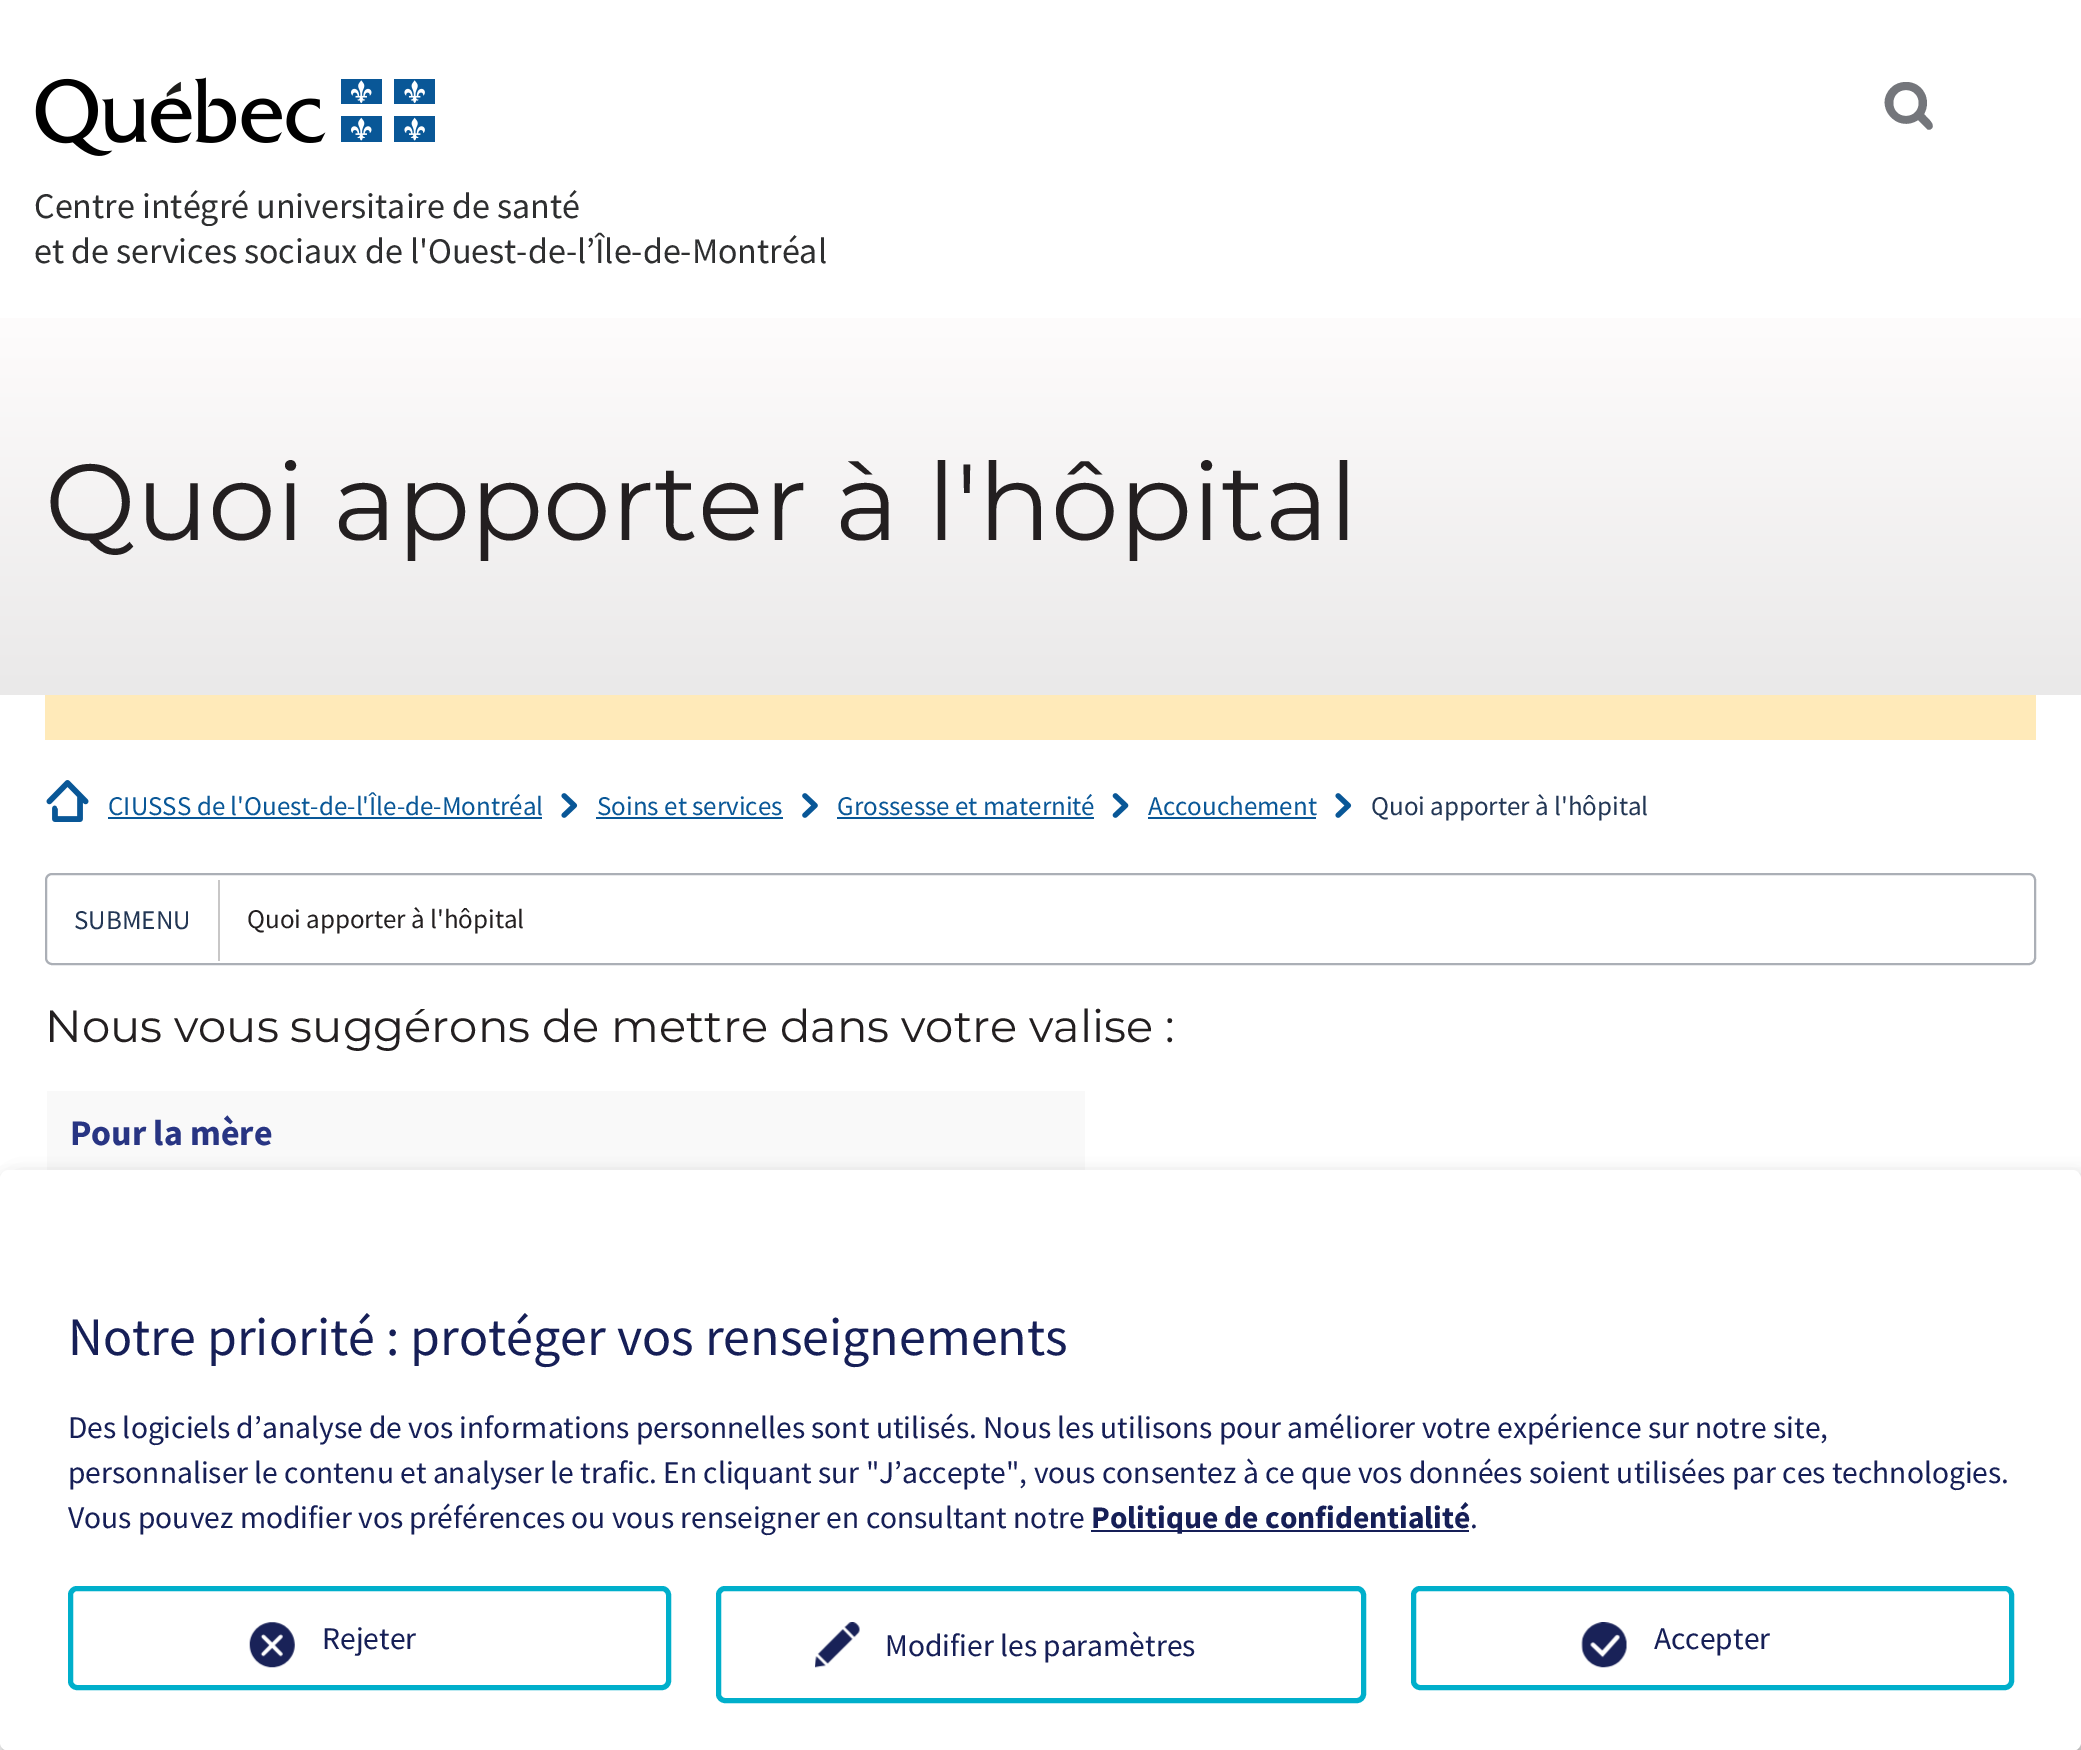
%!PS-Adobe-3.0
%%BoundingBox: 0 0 2081 1750
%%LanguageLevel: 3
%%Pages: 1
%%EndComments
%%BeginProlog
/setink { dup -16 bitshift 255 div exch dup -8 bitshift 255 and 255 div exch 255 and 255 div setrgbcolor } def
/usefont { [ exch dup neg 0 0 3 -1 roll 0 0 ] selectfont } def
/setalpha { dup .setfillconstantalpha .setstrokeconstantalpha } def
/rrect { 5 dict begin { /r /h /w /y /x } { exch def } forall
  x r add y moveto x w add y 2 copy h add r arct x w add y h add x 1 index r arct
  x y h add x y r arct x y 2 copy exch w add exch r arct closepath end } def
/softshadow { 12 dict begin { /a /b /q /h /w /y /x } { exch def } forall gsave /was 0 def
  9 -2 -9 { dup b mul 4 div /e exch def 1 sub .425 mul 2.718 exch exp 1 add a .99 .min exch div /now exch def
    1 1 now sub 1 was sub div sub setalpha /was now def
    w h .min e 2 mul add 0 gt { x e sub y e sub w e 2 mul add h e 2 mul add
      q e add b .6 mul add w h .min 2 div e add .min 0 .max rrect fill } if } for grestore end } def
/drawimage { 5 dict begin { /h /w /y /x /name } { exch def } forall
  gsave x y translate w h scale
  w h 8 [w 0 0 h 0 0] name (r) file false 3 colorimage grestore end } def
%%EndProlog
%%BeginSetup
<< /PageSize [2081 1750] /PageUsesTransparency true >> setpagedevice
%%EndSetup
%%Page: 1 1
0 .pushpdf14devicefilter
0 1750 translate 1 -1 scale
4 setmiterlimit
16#FFFFFF setink
0 0 2081 1750 rectfill
(img1.raw) 35 77 400 79 drawimage
16#74767B setink
1906 82 moveto 1923 82 1932 100 1924 114 curveto 1926 117 1937 125 1931 129 curveto 1930 130 1928 130 1927 129 curveto 1918 120 lineto 1897 134 1873 106 1891 88 curveto 1895 84 1900 82 1906 82 curveto closepath 1906 90 moveto 1889 90 1889 116 1906 116 curveto 1923 116 1923 90 1906 90 curveto closepath fill
/SourceSansPro-Regular 36 usefont
16#2E2F30 setink
34 218 moveto (Centre intégré universitaire de santé) show
34 263 moveto (et de services sociaux de l'Ouest-de-l’Île-de-Montréal) show
gsave 0 318 moveto 2081 318 lineto 2081 695 lineto 0 695 lineto closepath clip newpath
<< /ShadingType 2 /ColorSpace /DeviceRGB /Coords [1041 308 1041 803] /Extend [true true] /Function << /FunctionType 2 /Domain [0 1] /C0 [1 0.992 0.992] /C1 [0.894 0.894 0.894] /N 1 >> >> shfill grestore
/Montserrat-Regular 108 usefont
16#231F20 setink
45 540 moveto (Quoi apporter à l'hôpital) show
16#FFEAB9 setink
45 695 1991 45 rectfill
(img2.raw) 46 780 43 42 drawimage
/SourceSansPro-Regular 27 usefont
16#095797 setink
108 815 moveto (CIUSSS de l'Ouest-de-l'Île-de-Montréal) show
108 817 434 2 rectfill
(img3.raw) 561 793 17 25 drawimage
597 815 moveto (Soins et services) show
596 817 187 2 rectfill
(img4.raw) 802 793 16 25 drawimage
837 815 moveto (Grossesse et maternité) show
837 817 257 2 rectfill
(img5.raw) 1112 793 17 25 drawimage
1148 815 moveto (Accouchement) show
1148 817 168 2 rectfill
(img3.raw) 1335 793 17 25 drawimage
16#223654 setink
1371 815 moveto (Quoi apporter à l'hôpital) show
16#ABAFB6 setink
2 setlinewidth
46 874 1989 90 6 rrect stroke
16#223654 setink
74 929 moveto (SUBMENU) show
16#C8C7C7 setink
218 880 2 81 rectfill
16#231F20 setink
247 928 moveto (Quoi apporter à l'hôpital) show
/Montserrat-Regular 45 usefont
45 1042 moveto (Nous vous suggérons de mettre dans votre valise :) show
gsave
45 1089 1991 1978 9 rrect clip newpath
16#F9F9F9 setink
47 1091 1038 79 rectfill
grestore
/SourceSansPro-Bold 36 usefont
16#283583 setink
70 1145 moveto (Pour la mère) show
16#000000 setink
11 1181 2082 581 9 11 0.19 softshadow
0 1179 2081 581 9 7 0.2 softshadow
16#FFFFFF setink
0 1170 2081 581 9 rrect fill
/SourceSansPro-Regular 54 usefont
16#161F57 setink
68 1355 moveto (Notre priorité : protéger vos renseignements) show
/SourceSansPro-Regular 31.5 usefont
[
    [(Des logiciels d’analyse de vos informations personnelles sont utilisés. Nous les utilisons pour améliorer votre expérience sur notre site,) 68 1438]
    [(personnaliser le contenu et analyser le trafic. En cliquant sur "J’accepte", vous consentez à ce que vos données soient utilisées par ces technologies.) 68 1483]
    [(Vous pouvez modifier vos préférences ou vous renseigner en consultant notre) 68 1528]
] { aload pop moveto show } forall
1091 1530 378 2 rectfill
/SourceSansPro-Bold 31.5 usefont
1091 1528 moveto (Politique de confidentialité) show
/SourceSansPro-Regular 31.5 usefont
1470 1528 moveto (.) show
16#00AFCB setink
5 setlinewidth
70.5 1588.5 598 99 6.5 rrect stroke
(img6.raw) 249 1622 46 46 drawimage
16#161F57 setink
322 1649 moveto (Rejeter) show
16#00AFCB setink
1413.5 1588.5 598 99 6.5 rrect stroke
(img7.raw) 1581 1622 46 46 drawimage
16#161F57 setink
1654 1649 moveto (Accepter) show
16#00AFCB setink
718.5 1588.5 645 112 6.5 rrect stroke
(img8.raw) 815 1622 45 46 drawimage
16#161F57 setink
885 1656 moveto (Modifier les paramètres) show
.poppdf14devicefilter showpage
%%EOF
